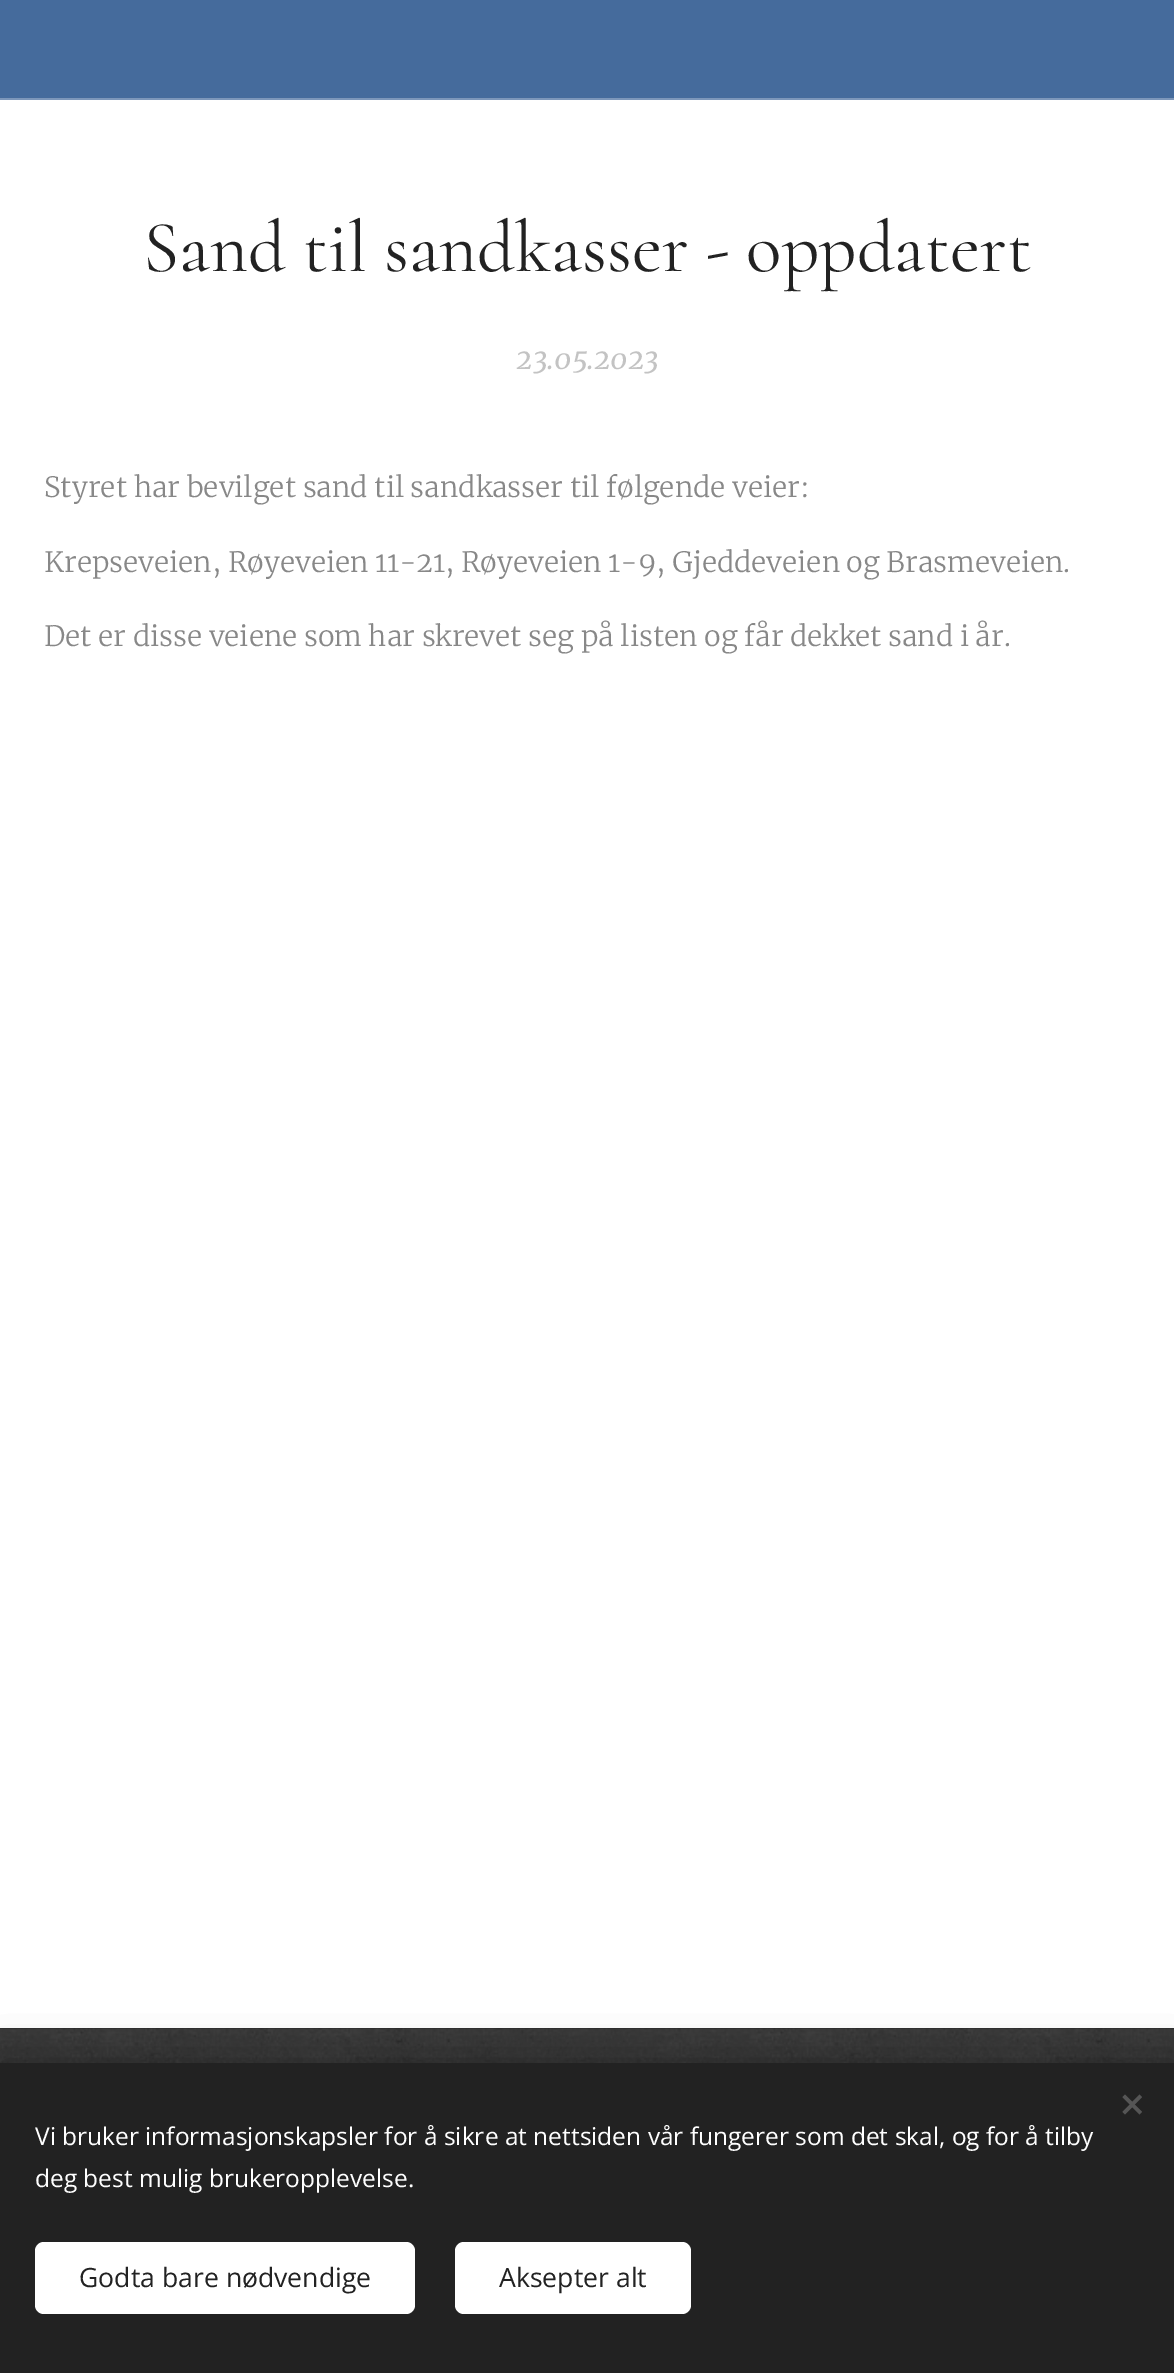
%!PS-Adobe-3.0
%%BoundingBox: 0 0 1174 2373
%%LanguageLevel: 3
%%Pages: 1
%%EndComments
%%BeginProlog
/setink { dup -16 bitshift 255 div exch dup -8 bitshift 255 and 255 div exch 255 and 255 div setrgbcolor } def
/usefont { [ exch dup neg 0 0 3 -1 roll 0 0 ] selectfont } def
/setalpha { dup .setfillconstantalpha .setstrokeconstantalpha } def
/rrect { 5 dict begin { /r /h /w /y /x } { exch def } forall
  x r add y moveto x w add y 2 copy h add r arct x w add y h add x 1 index r arct
  x y h add x y r arct x y 2 copy exch w add exch r arct closepath end } def
/softshadow { 12 dict begin { /a /b /q /h /w /y /x } { exch def } forall gsave /was 0 def
  9 -2 -9 { dup b mul 4 div /e exch def 1 sub .425 mul 2.718 exch exp 1 add a .99 .min exch div /now exch def
    1 1 now sub 1 was sub div sub setalpha /was now def
    w h .min e 2 mul add 0 gt { x e sub y e sub w e 2 mul add h e 2 mul add
      q e add b .6 mul add w h .min 2 div e add .min 0 .max rrect fill } if } for grestore end } def
/drawimage { 5 dict begin { /h /w /y /x /name } { exch def } forall
  gsave x y translate w h scale
  w h 8 [w 0 0 h 0 0] name (r) file false 3 colorimage grestore end } def
%%EndProlog
%%BeginSetup
<< /PageSize [1174 2373] /PageUsesTransparency true >> setpagedevice
%%EndSetup
%%Page: 1 1
0 .pushpdf14devicefilter
0 2373 translate 1 -1 scale
4 setmiterlimit
16#FFFFFF setink
0 0 1174 2373 rectfill
16#456B9C setink
0 0 1174 98 rectfill
16#7D97BA setink
0 98 1174 2 rectfill
/Cormorant-Regular 73.5 usefont
16#222222 setink
143 271 moveto (Sand til sandkasser - oppdatert) show
/Merriweather-Italic 28 usefont
16#C3C3C3 setink
516 369 moveto (23.05.2023) show
/Merriweather-Light 28 usefont
16#888888 setink
[
    [(Styret har bevilget sand til sandkasser til følgende veier:) 44 497]
    [(Krepseveien, Røyeveien 11-21, Røyeveien 1-9, Gjeddeveien og Brasmeveien.) 44 572]
    [(Det er disse veiene som har skrevet seg på listen og får dekket sand i år.) 44 646]
] { aload pop moveto show } forall
16#272727 setink
0 2028 1174 1 rectfill
(img1.raw) 0 2028 1174 35 drawimage
16#000000 setink
0 2063 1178 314 0 22 0.33 softshadow
16#222222 setink
0 2063 1174 310 rectfill
16#555555 setink
1122.5 2112 moveto 1139.5 2094.5 lineto 1142 2097 lineto 1125 2114.5 lineto closepath fill
1125 2094.5 moveto 1142 2112 lineto 1139.5 2114.5 lineto 1122.5 2097 lineto closepath fill
/OpenSans-Regular 24.5 usefont
16#FFFFFF setink
35 2145 moveto (Vi bruker informasjonskapsler for å sikre at nettsiden vår fungerer som det skal, og for å tilby) show
35 2187 moveto (deg best mulig brukeropplevelse.) show
35 2242 380 72 9 rrect fill
/OpenSans-Regular 26.6 usefont
16#222222 setink
79 2287 moveto (Godta bare nødvendige) show
16#FFFFFF setink
455 2242 236 72 9 rrect fill
16#222222 setink
499 2287 moveto (Aksepter alt) show
.poppdf14devicefilter showpage
%%EOF
